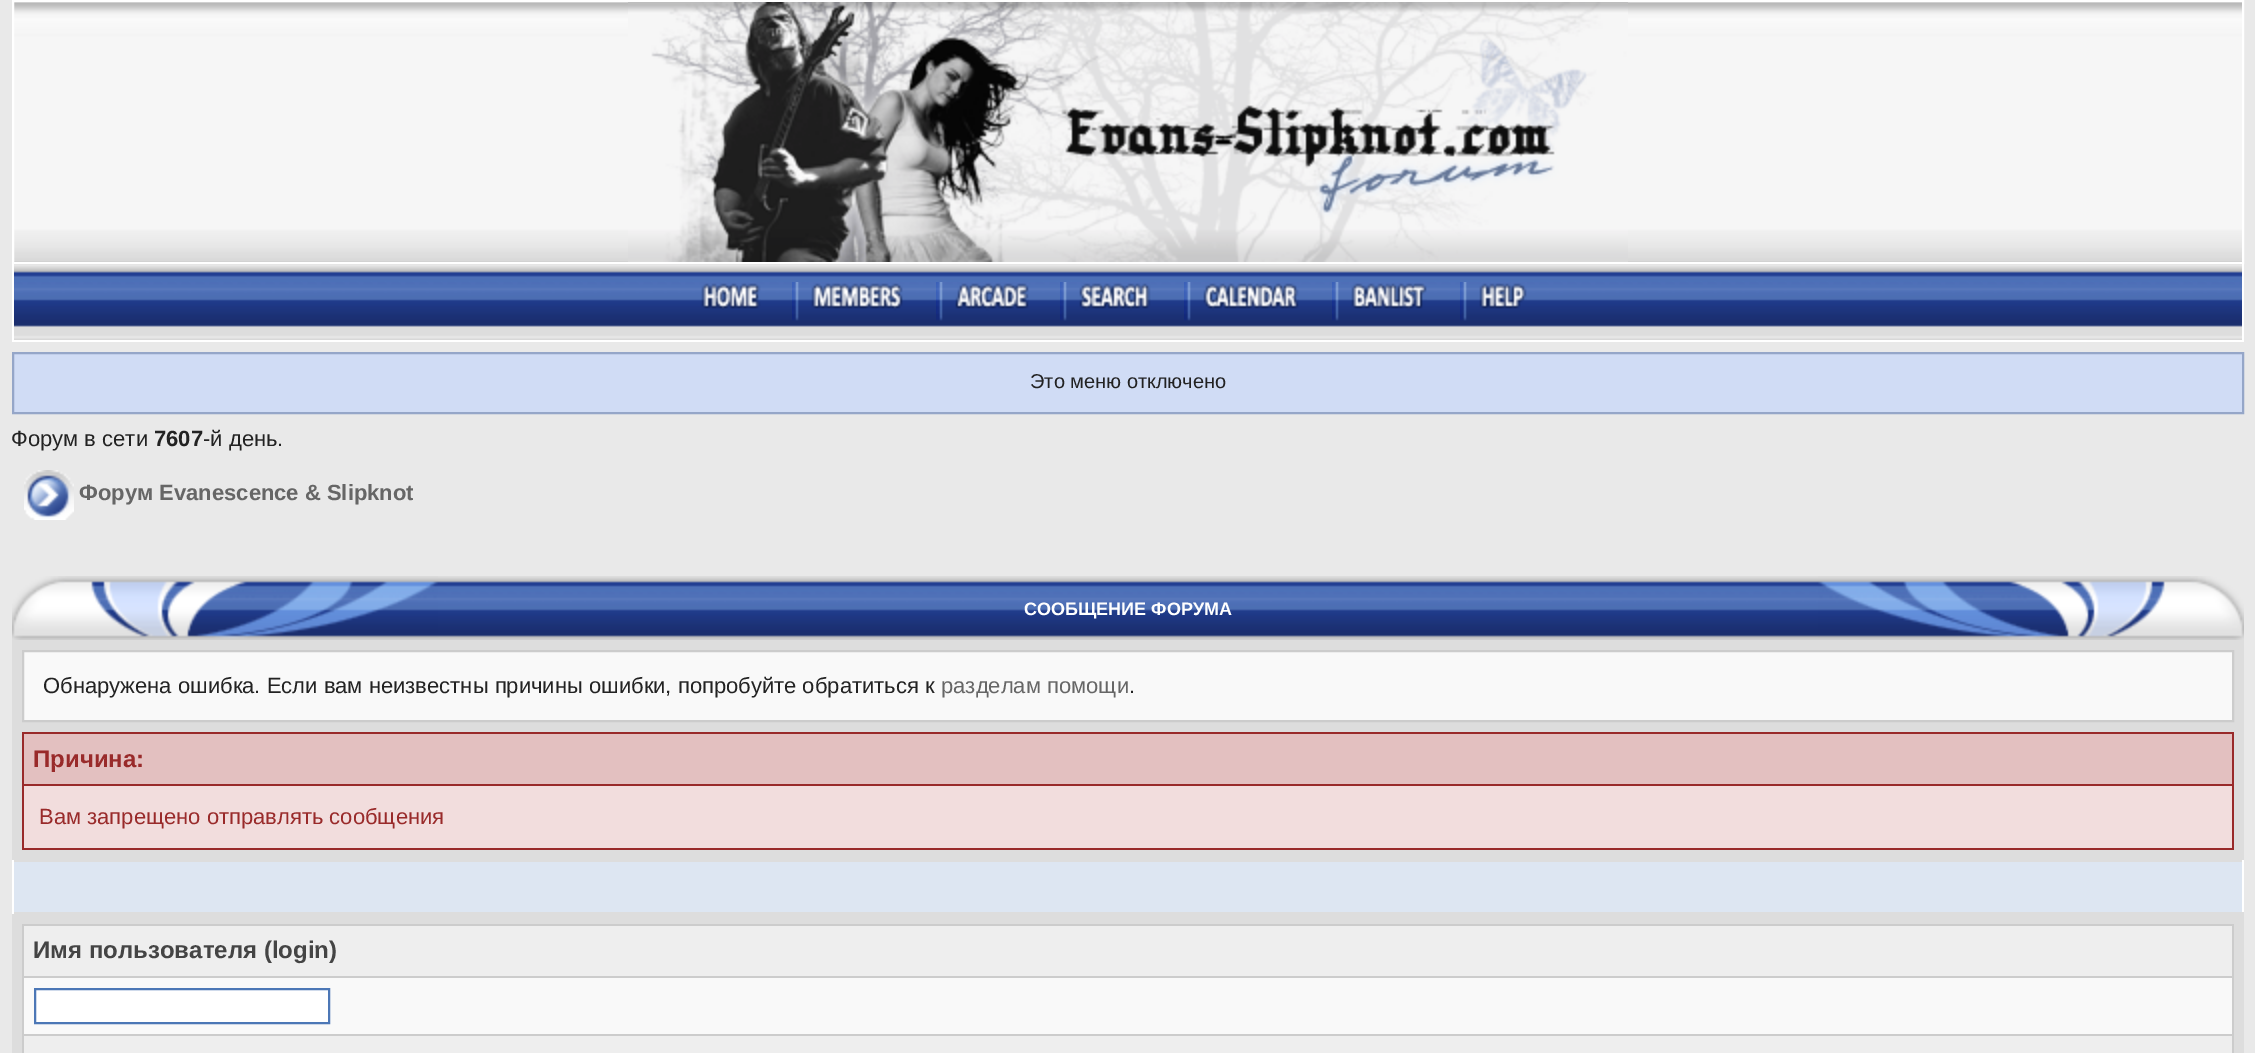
%!PS-Adobe-3.0
%%BoundingBox: 0 0 2255 1053
%%LanguageLevel: 3
%%Pages: 1
%%EndComments
%%BeginProlog
/setink { dup -16 bitshift 255 div exch dup -8 bitshift 255 and 255 div exch 255 and 255 div setrgbcolor } def
/usefont { [ exch dup neg 0 0 3 -1 roll 0 0 ] selectfont } def
/drawimage { 5 dict begin { /h /w /y /x /name } { exch def } forall
  gsave x y translate w h scale
  w h 8 [w 0 0 h 0 0] name (r) file false 3 colorimage grestore end } def
%%EndProlog
%%BeginSetup
<< /PageSize [2255 1053] >> setpagedevice
%%EndSetup
%%Page: 1 1
0 1053 translate 1 -1 scale
4 setmiterlimit
16#E9E9E9 setink
0 0 2255 1053 rectfill
16#DDDDDD setink
14 264 2228 73 rectfill
(img1.raw) 14 2 2228 260 drawimage
16#FFFFFF setink
2 setlinewidth
13 1 2230 262 rectstroke
(img2.raw) 628 2 1000 260 drawimage
(img3.raw) 14 264 2228 76 drawimage
[
    [2242 264 2 78 16#FFFFFF]
    [12 340 2232 2 16#FFFFFF]
    [12 264 2 78 16#FFFFFF]
] { aload pop setink rectfill } forall
(img4.raw) 701 283 60 27 drawimage
(img5.raw) 792 282 111 39 drawimage
(img6.raw) 936 282 93 39 drawimage
(img7.raw) 1060 282 91 39 drawimage
(img8.raw) 1184 282 115 39 drawimage
(img9.raw) 1332 282 95 39 drawimage
(img10.raw) 1460 282 67 39 drawimage
16#D0DCF5 setink
13 353 moveto 2243 353 lineto 2243 413 lineto 13 413 lineto closepath gsave fill grestore
16#95A6C8 setink
stroke
/LiberationSans-Regular 20 usefont
16#222222 setink
1030 388 moveto (Это меню отключено) show
/LiberationSans-Regular 22 usefont
11 446 moveto (Форум в сети) show
/LiberationSans-Bold 22 usefont
154 446 moveto (7607) show
/LiberationSans-Regular 22 usefont
203 446 moveto (-й день.) show
(img11.raw) 24 470 50 50 drawimage
/LiberationSans-Bold 22 usefont
16#666666 setink
79 500 moveto (Форум Evanescence & Slipknot) show
16#DDDDDD setink
12 576 2232 477 rectfill
(img12.raw) 438 577 1380 63 drawimage
(img13.raw) 12 576 426 64 drawimage
(img14.raw) 1818 576 426 64 drawimage
/LiberationSans-Bold 18 usefont
16#FFFFFF setink
1024 615 moveto (СООБЩЕНИЕ ФОРУМА) show
16#F9F9F9 setink
23 651 moveto 2233 651 lineto 2233 721 lineto 23 721 lineto closepath gsave fill grestore
16#CCCCCC setink
stroke
/LiberationSans-Regular 22 usefont
16#222222 setink
43 693 moveto (Обнаружена ошибка. Если вам неизвестны причины ошибки, попробуйте обратиться к) show
16#666666 setink
941 693 moveto (разделам помощи) show
16#222222 setink
1129 693 moveto (.) show
[
    [24 786 2208 62 16#F2DDDD]
    [2232 732 2 118 16#992A2A]
    [22 848 2212 2 16#992A2A]
    [22 732 2 118 16#992A2A]
    [24 734 2208 50 16#E3C0C0]
    [24 732 2208 2 16#992A2A]
    [24 784 2208 2 16#992A2A]
] { aload pop setink rectfill } forall
/LiberationSans-Bold 24 usefont
33 767 moveto (Причина:) show
/LiberationSans-Regular 22 usefont
39 824 moveto (Вам запрещено отправлять сообщения) show
[
    [14 862 2228 50 16#DDE6F2]
    [2242 860 2 54 16#FFFFFF]
    [2242 912 2 2 16#DDDDDD]
    [12 860 2 54 16#FFFFFF]
    [24 978 2208 56 16#F9F9F9]
    [2232 924 2 129 16#CCCCCC]
    [22 924 2 129 16#CCCCCC]
    [24 926 2208 50 16#EEEEEE]
    [24 924 2208 2 16#CCCCCC]
    [24 976 2208 2 16#CCCCCC]
] { aload pop setink rectfill } forall
/LiberationSans-Bold 24 usefont
16#444444 setink
33 958 moveto (Имя пользователя \(login\)) show
16#FFFFFF setink
35 989 moveto 329 989 lineto 329 1023 lineto 35 1023 lineto closepath gsave fill grestore
16#4C77B6 setink
stroke
16#EEEEEE setink
24 1036 2208 17 rectfill
16#CCCCCC setink
24 1034 2208 2 rectfill
showpage
%%EOF
